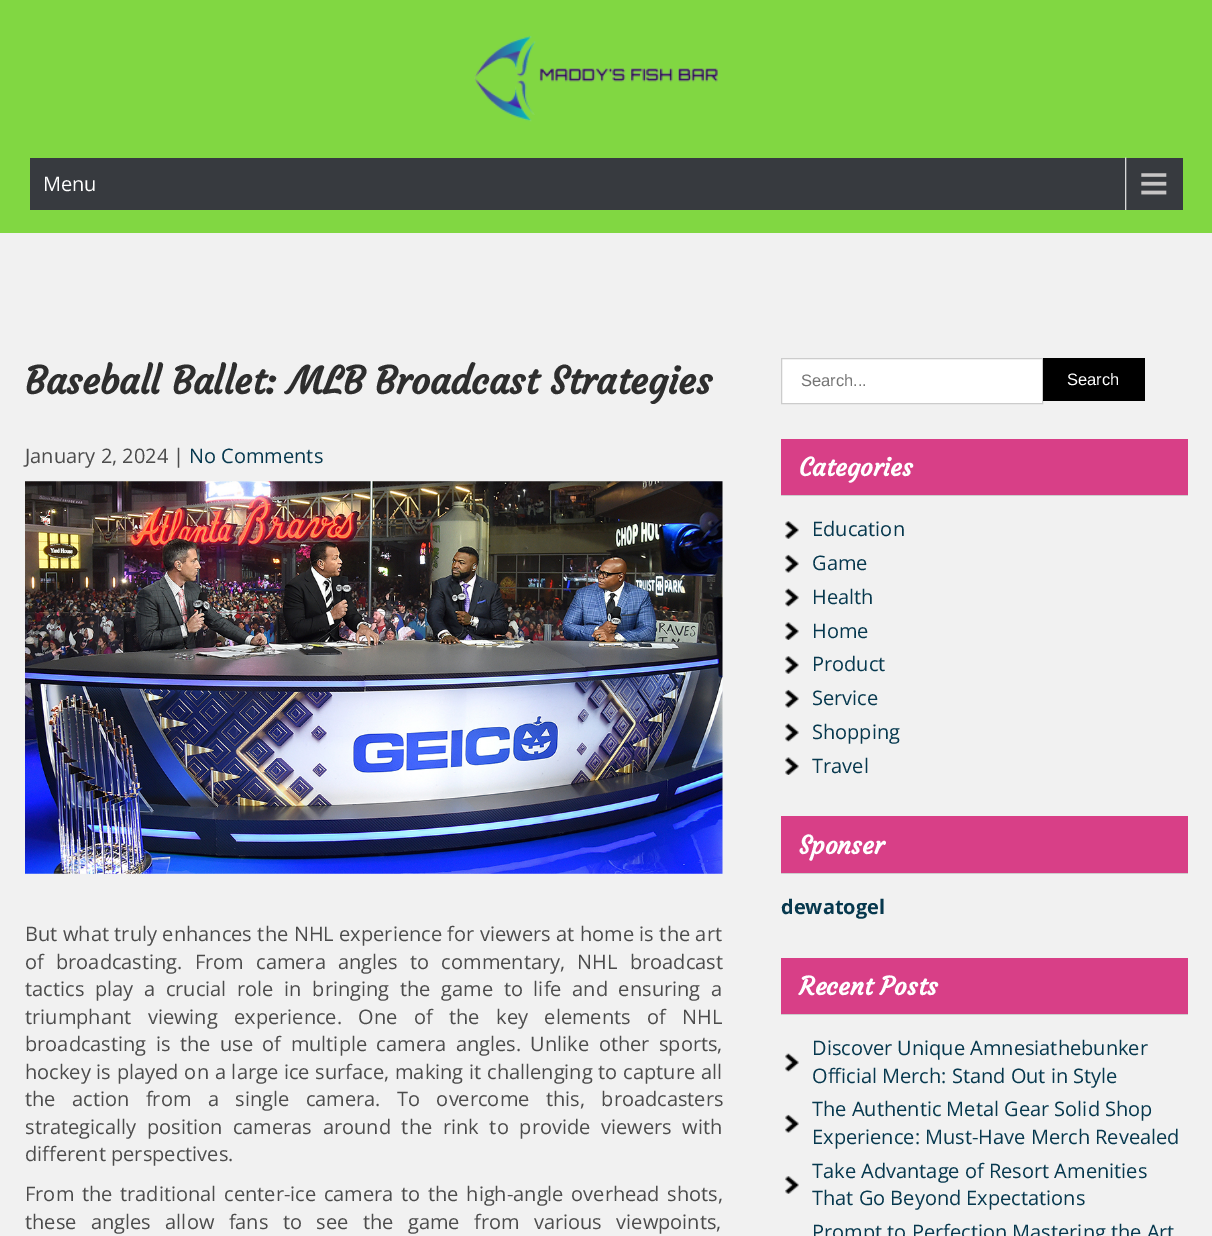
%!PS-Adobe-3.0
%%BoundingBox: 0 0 1212 1236
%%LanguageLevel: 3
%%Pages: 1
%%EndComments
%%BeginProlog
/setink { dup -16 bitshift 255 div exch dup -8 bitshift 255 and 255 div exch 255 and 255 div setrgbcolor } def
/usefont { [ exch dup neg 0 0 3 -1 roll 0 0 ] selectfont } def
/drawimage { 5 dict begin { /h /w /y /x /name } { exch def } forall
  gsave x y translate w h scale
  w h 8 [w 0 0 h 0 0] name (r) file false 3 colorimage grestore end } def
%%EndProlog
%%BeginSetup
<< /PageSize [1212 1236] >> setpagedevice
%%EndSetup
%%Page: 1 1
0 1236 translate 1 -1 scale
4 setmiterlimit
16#F1F1F1 setink
0 0 1212 1236 rectfill
16#81D742 setink
0 0 1212 233 rectfill
(img1.raw) 474 36 244 86 drawimage
16#373A3F setink
30 158 1153 52 rectfill
(img2.raw) 1125 157 42 53 drawimage
/OpenSans-Regular 20 usefont
16#FFFFFF setink
43 191 moveto (Menu) show
/Courgette-Bold 37.5 usefont
16#2E2E2E setink
25 394 moveto (Baseball Ballet: MLB Broadcast Strategies) show
/OpenSans-Regular 20 usefont
16#4C4C4C setink
25 463 moveto (January 2, 2024 |) show
16#06384E setink
189 463 moveto (No Comments) show
(img3.raw) 25 481 698 393 drawimage
16#4C4C4C setink
25 941 moveto 0.3 0 32 (But what truly enhances the NHL experience for viewers at home is the art) widthshow
25 969 moveto 7 0 32 (of broadcasting. From camera angles to commentary, NHL broadcast) widthshow
25 996 moveto 5.5 0 32 (tactics play a crucial role in bringing the game to life and ensuring a) widthshow
25 1024 moveto 11.25 0 32 (triumphant viewing experience. One of the key elements of NHL) widthshow
25 1051 moveto 4.25 0 32 (broadcasting is the use of multiple camera angles. Unlike other sports,) widthshow
25 1079 moveto 0.6 0 32 (hockey is played on a large ice surface, making it challenging to capture all) widthshow
25 1106 moveto 11.25 0 32 (the action from a single camera. To overcome this, broadcasters) widthshow
25 1134 moveto 5.5 0 32 (strategically position cameras around the rink to provide viewers with) widthshow
25 1161 moveto (different perspectives.) show
25 1201 moveto 2.5 0 32 (From the traditional center-ice camera to the high-angle overhead shots,) widthshow
25 1229 moveto 9.25 0 32 (these angles allow fans to see the game from various viewpoints,) widthshow
16#FFFFFF setink
781.5 358.5 moveto 1042.5 358.5 lineto 1042.5 403.5 lineto 781.5 403.5 lineto closepath gsave fill grestore
16#CCCCCC setink
stroke
/LiberationSans-Regular 16.5 usefont
16#757575 setink
801 386 moveto (Search...) show
16#000000 setink
1043 358 102 43 rectfill
16#FFFFFF setink
1067 385 moveto (Search) show
16#D83F87 setink
781 439 407 56 rectfill
16#CCCCCC setink
781 495 407 1 rectfill
/Courgette-Bold 25 usefont
16#FFFFFF setink
799 476 moveto (Categories) show
(img4.raw) 785 521 14 18 drawimage
/OpenSans-Regular 20 usefont
16#06384E setink
812 536 moveto (Education) show
(img5.raw) 785 554 14 19 drawimage
812 570 moveto (Game) show
(img6.raw) 785 588 14 19 drawimage
812 604 moveto (Health) show
(img7.raw) 785 622 14 18 drawimage
812 638 moveto (Home) show
(img4.raw) 785 656 14 18 drawimage
812 671 moveto (Product) show
(img5.raw) 785 689 14 19 drawimage
812 705 moveto (Service) show
(img8.raw) 785 723 14 19 drawimage
812 739 moveto (Shopping) show
(img7.raw) 785 757 14 18 drawimage
812 773 moveto (Travel) show
16#D83F87 setink
781 816 407 57 rectfill
16#CCCCCC setink
781 873 407 1 rectfill
/Courgette-Bold 25 usefont
16#FFFFFF setink
799 854 moveto (Sponser) show
/OpenSans-Bold 20 usefont
16#06384E setink
781 914 moveto (dewatogel) show
16#D83F87 setink
781 958 407 56 rectfill
16#CCCCCC setink
781 1014 407 1 rectfill
/Courgette-Bold 25 usefont
16#FFFFFF setink
799 995 moveto (Recent Posts) show
(img8.raw) 785 1053 14 19 drawimage
/OpenSans-Regular 20 usefont
16#06384E setink
812 1055 moveto (Discover Unique Amnesiathebunker) show
812 1083 moveto (Official Merch: Stand Out in Style) show
(img5.raw) 785 1114 14 19 drawimage
812 1116 moveto (The Authentic Metal Gear Solid Shop) show
812 1144 moveto (Experience: Must-Have Merch Revealed) show
(img9.raw) 785 1176 14 18 drawimage
[
    [(Take Advantage of Resort Amenities) 812 1178]
    [(That Go Beyond Expectations) 812 1205]
    [(Prompt to Perfection Mastering the Art) 812 1239]
] { aload pop moveto show } forall
showpage
%%EOF
